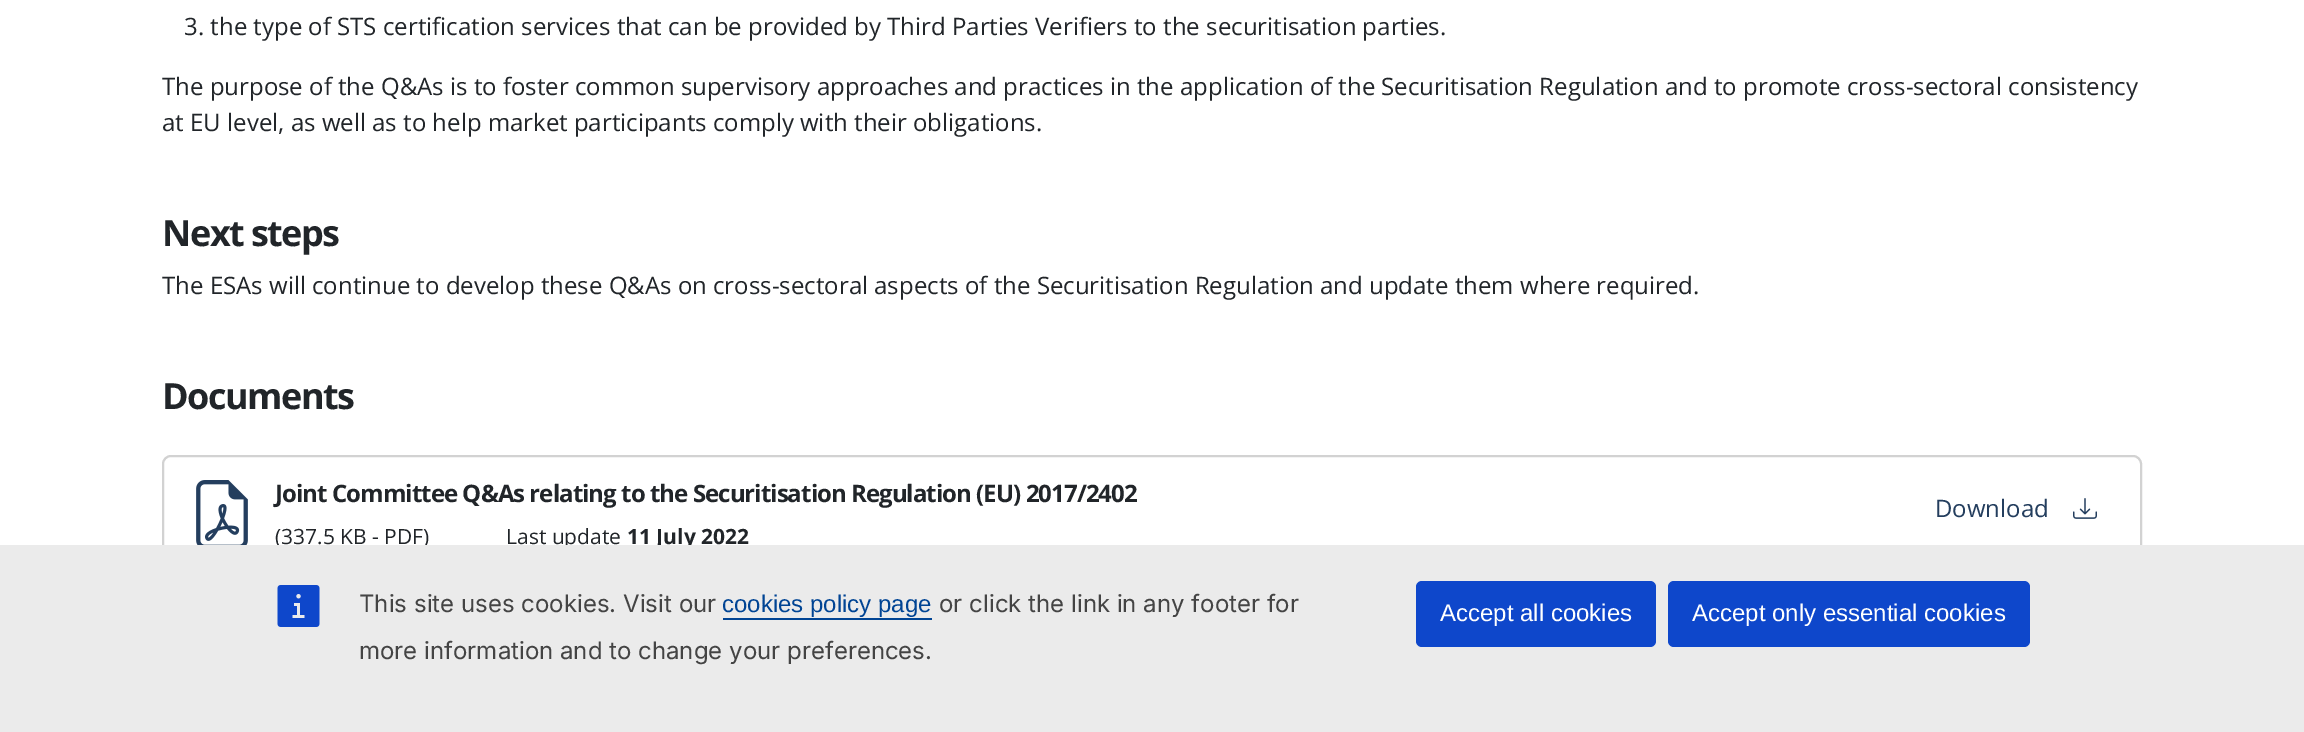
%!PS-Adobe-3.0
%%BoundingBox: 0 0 2304 732
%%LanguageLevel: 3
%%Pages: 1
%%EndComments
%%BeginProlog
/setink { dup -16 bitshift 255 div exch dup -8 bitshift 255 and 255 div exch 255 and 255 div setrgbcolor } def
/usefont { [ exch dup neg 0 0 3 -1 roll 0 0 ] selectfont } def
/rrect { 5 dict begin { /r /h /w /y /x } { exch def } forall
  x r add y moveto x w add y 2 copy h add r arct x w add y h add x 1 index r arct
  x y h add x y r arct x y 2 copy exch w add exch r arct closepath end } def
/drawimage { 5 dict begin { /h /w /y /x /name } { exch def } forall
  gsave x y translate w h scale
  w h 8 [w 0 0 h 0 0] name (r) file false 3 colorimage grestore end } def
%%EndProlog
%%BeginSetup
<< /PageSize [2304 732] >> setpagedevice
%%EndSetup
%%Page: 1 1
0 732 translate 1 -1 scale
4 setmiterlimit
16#FFFFFF setink
0 0 2304 732 rectfill
/OpenSans-Regular 24 usefont
16#212529 setink
[
    [(3. the type of STS certification services that can be provided by Third Parties Verifiers to the securitisation parties.) 184 35]
    [(The purpose of the Q&As is to foster common supervisory approaches and practices in the application of the Securitisation Regulation and to promote cross-sectoral consistency) 162 95]
    [(at EU level, as well as to help market participants comply with their obligations.) 162 131]
] { aload pop moveto show } forall
/OpenSans-Bold 36 usefont
162 246 moveto -1.5 0 (Next steps) ashow
/OpenSans-Regular 24 usefont
162 294 moveto (The ESAs will continue to develop these Q&As on cross-sectoral aspects of the Securitisation Regulation and update them where required.) show
/OpenSans-Bold 36 usefont
162 409 moveto -1.5 0 (Documents) ashow
16#D2D2D2 setink
2 setlinewidth
163 456 1978 121 8 rrect stroke
(img1.raw) 196 480 52 65 drawimage
/OpenSans-Bold 24 usefont
16#212529 setink
275 502 moveto -0.95 0 (Joint Committee Q&As relating to the Securitisation Regulation \(EU\) 2017/2402) ashow
/OpenSans-Regular 21 usefont
275 544 moveto (\(337.5 KB - PDF\)) show
506 544 moveto (Last update) show
/OpenSans-Bold 21 usefont
627 544 moveto (11 July 2022) show
/OpenSans-Regular 24 usefont
16#243E5E setink
1935 517 moveto (Download) show
(img2.raw) 2073 498 24 21 drawimage
16#EBEBEB setink
0 545 2304 187 rectfill
(img3.raw) 277 585 43 42 drawimage
/Inter-Regular 24 usefont
16#444444 setink
359 612 moveto (This site uses cookies. Visit our) show
/LiberationSans-Regular 24 usefont
16#004494 setink
722 612 moveto (cookies policy page) show
723 618 209 2 rectfill
/Inter-Regular 24 usefont
16#444444 setink
939 612 moveto (or click the link in any footer for) show
359 659 moveto (more information and to change your preferences.) show
16#0E47CB setink
1416 581 240 66 6 rrect fill
/LiberationSans-Regular 24 usefont
16#FFFFFF setink
1440 621 moveto (Accept all cookies) show
16#0E47CB setink
1668 581 362 66 6 rrect fill
16#FFFFFF setink
1692 621 moveto (Accept only essential cookies) show
showpage
%%EOF
